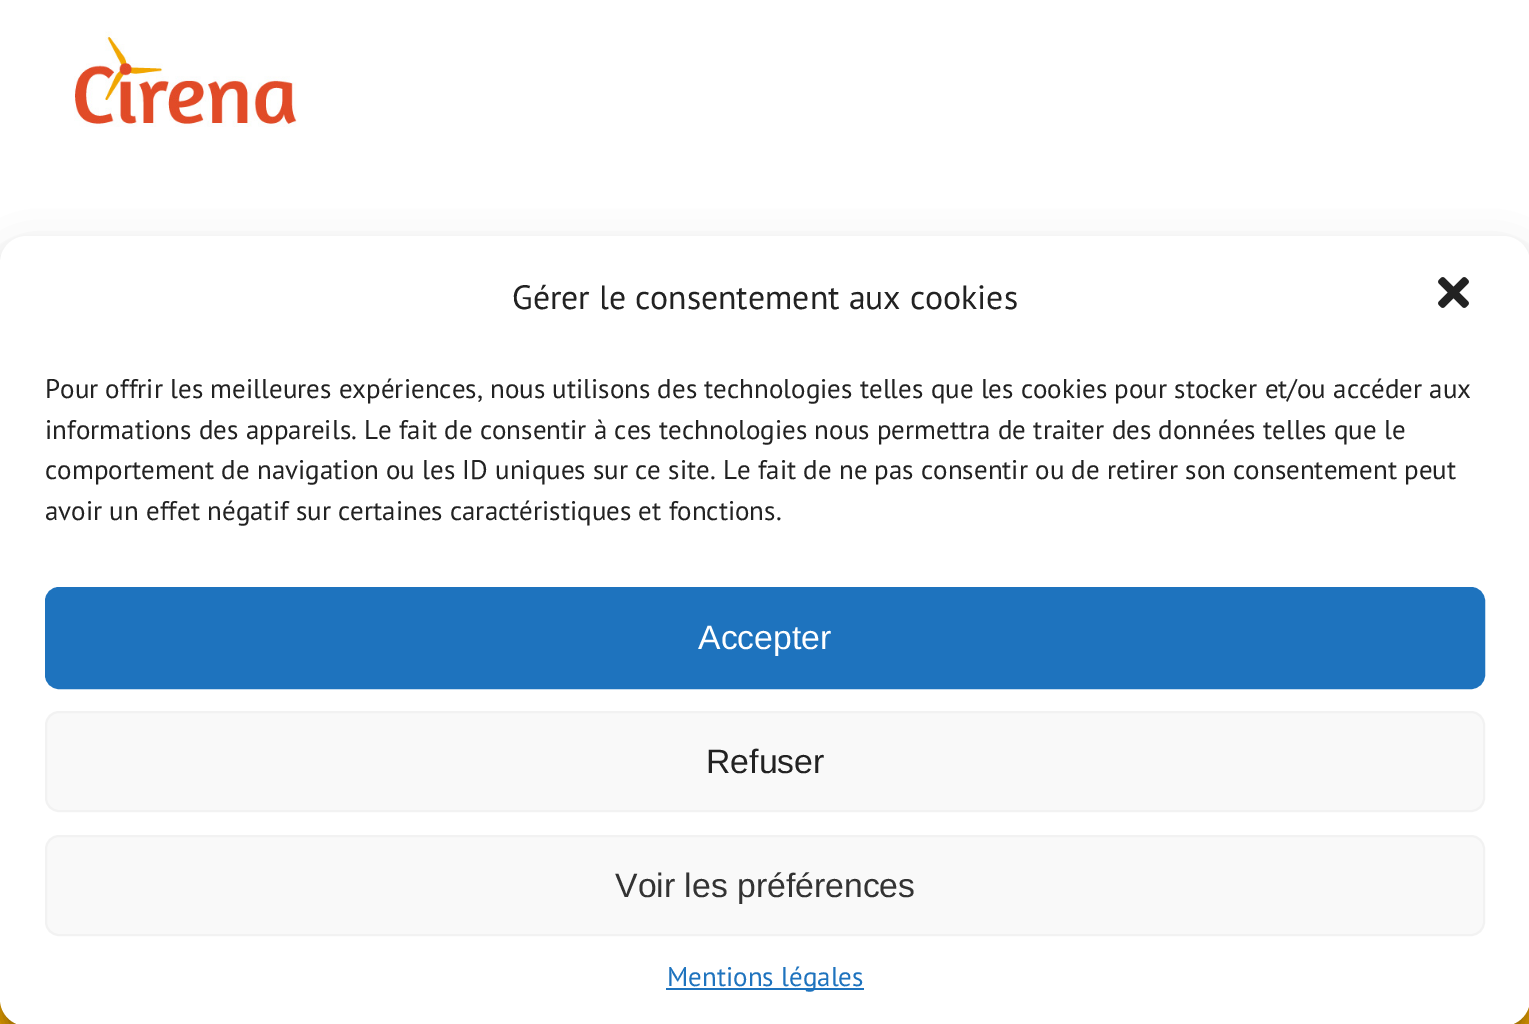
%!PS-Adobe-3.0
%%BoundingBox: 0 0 1529 1024
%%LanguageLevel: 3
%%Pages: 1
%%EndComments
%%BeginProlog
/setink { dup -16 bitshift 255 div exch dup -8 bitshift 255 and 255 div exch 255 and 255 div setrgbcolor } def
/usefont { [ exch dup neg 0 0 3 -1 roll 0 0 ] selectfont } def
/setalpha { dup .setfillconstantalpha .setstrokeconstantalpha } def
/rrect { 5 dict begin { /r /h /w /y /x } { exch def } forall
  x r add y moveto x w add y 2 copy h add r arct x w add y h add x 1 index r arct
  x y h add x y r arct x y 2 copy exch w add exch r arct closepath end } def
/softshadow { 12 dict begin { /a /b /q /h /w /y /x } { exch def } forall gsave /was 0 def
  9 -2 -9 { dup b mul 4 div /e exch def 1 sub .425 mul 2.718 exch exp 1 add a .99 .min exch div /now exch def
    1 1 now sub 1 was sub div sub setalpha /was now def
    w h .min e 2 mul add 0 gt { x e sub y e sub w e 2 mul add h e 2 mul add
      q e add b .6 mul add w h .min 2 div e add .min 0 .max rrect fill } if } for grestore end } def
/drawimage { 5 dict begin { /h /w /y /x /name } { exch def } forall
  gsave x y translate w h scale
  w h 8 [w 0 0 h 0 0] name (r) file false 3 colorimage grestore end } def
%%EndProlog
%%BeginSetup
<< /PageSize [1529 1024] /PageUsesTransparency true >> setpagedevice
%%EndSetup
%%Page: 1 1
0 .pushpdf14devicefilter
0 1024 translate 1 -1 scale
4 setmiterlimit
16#FFFFFF setink
0 0 1529 1024 rectfill
(img1.raw) 74 31 223 96 drawimage
16#F0A500 setink
0 999 1529 25 rectfill
16#000000 setink
0 250 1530 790 27 7 0.23 softshadow
0 259 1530 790 27 22.5 0.19 softshadow
16#FFFFFF setink
0 236 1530 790 27 rrect fill
/PTSans-Regular 33.75 usefont
16#222222 setink
512 309 moveto (Gérer le consentement aux cookies) show
(img2.raw) 1438 277 31 31 drawimage
/PTSans-Regular 27 usefont
[
    [(Pour offrir les meilleures expériences, nous utilisons des technologies telles que les cookies pour stocker et/ou accéder aux) 45 398]
    [(informations des appareils. Le fait de consentir à ces technologies nous permettra de traiter des données telles que le) 45 439]
    [(comportement de navigation ou les ID uniques sur ce site. Le fait de ne pas consentir ou de retirer son consentement peut) 45 479]
    [(avoir un effet négatif sur certaines caractéristiques et fonctions.) 45 520]
] { aload pop moveto show } forall
16#1E73BE setink
46 588 1438 100 13 rrect gsave fill grestore
2 setlinewidth
stroke
/LiberationSans-Regular 33.75 usefont
16#FFFFFF setink
698 649 moveto (Accepter) show
16#F9F9F9 setink
46 712 1438 99 13 rrect gsave fill grestore
16#F2F2F2 setink
stroke
16#222222 setink
706 773 moveto (Refuser) show
16#F9F9F9 setink
46 836 1438 99 13 rrect gsave fill grestore
16#F2F2F2 setink
stroke
16#333333 setink
615 897 moveto (Voir les préférences) show
16#1E73BE setink
666 988 198 2 rectfill
/PTSans-Regular 27 usefont
667 986 moveto (Mentions légales) show
.poppdf14devicefilter showpage
%%EOF
